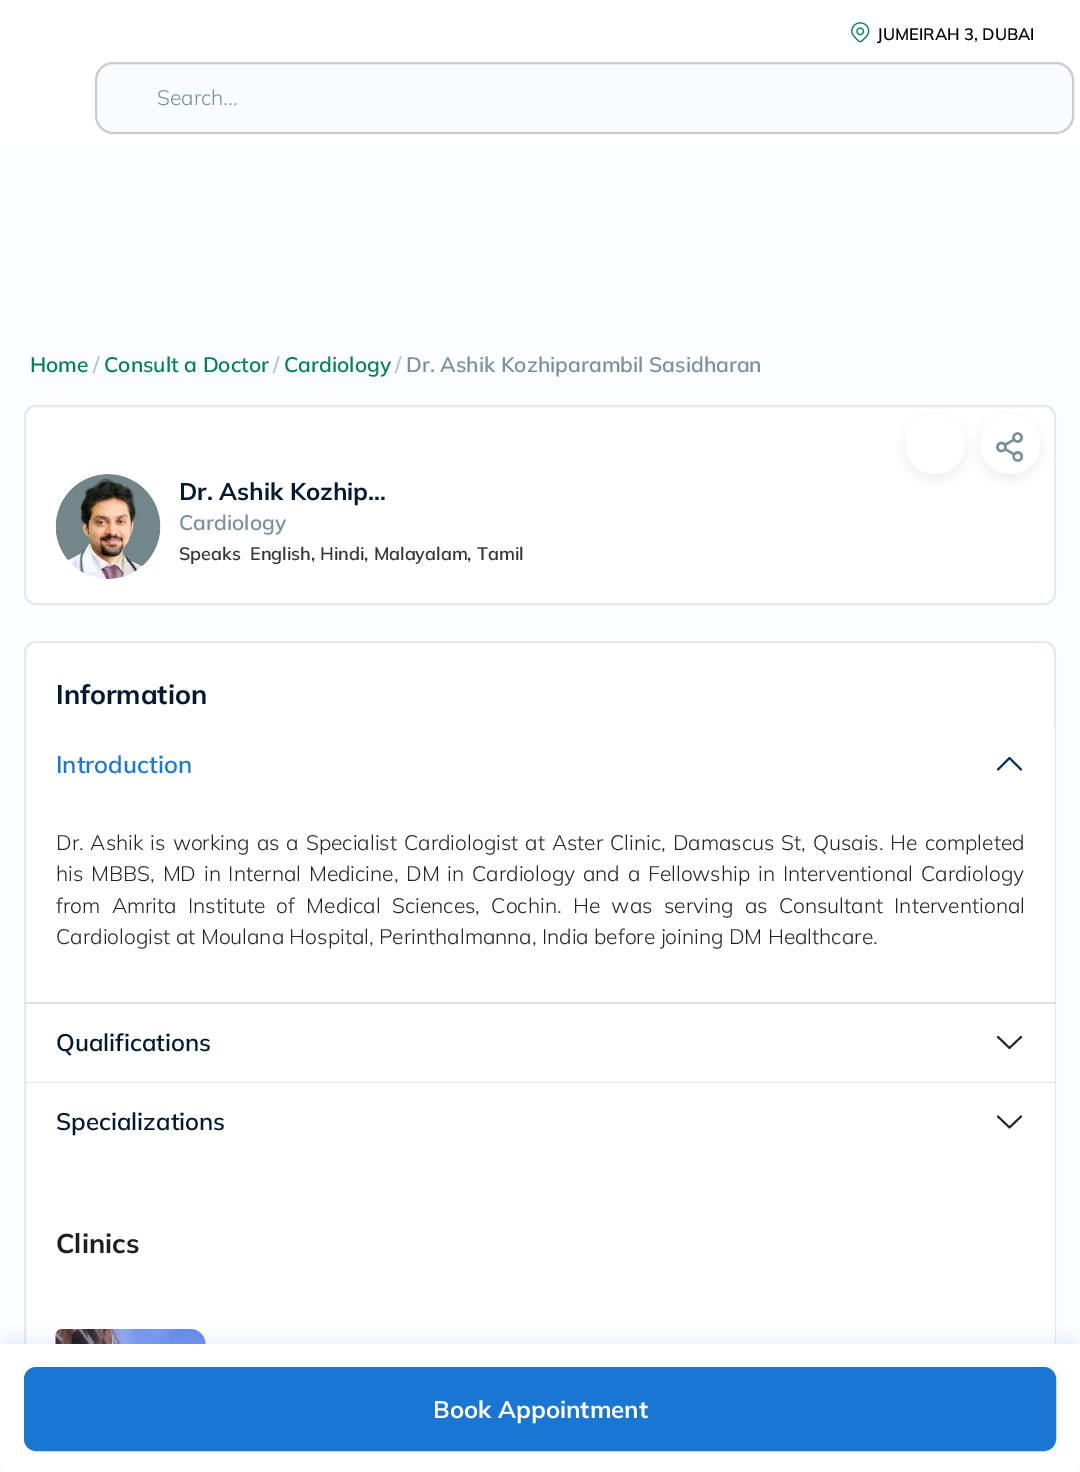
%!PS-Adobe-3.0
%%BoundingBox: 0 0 1080 1472
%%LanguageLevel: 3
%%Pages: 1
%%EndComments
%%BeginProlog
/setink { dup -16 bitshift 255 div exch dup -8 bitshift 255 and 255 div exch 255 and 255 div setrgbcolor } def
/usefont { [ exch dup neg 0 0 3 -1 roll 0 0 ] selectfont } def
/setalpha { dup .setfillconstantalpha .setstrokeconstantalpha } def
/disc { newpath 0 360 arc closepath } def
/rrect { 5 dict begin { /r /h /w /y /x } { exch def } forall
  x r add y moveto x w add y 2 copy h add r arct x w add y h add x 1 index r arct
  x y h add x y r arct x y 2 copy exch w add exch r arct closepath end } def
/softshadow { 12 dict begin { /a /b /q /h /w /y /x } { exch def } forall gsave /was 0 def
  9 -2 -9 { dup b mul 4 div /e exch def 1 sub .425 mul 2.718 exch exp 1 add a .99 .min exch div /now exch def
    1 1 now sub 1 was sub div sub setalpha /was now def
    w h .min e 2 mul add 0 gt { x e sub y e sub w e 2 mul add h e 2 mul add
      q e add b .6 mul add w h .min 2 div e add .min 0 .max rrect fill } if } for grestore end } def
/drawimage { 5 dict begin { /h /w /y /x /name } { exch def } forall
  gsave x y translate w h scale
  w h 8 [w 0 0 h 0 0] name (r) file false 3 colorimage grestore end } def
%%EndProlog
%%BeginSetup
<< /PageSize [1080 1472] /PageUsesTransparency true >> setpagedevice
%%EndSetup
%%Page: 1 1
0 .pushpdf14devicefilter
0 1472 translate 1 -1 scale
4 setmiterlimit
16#FBFDFF setink
0 0 1080 1472 rectfill
16#FFFFFF setink
0 0 1080 146 rectfill
(img1.raw) 851 22 19 21 drawimage
/Mulish-ExtraLight 16.5 usefont
16#000000 setink
877 40 moveto (JUMEIRAH 3, DUBAI) show
16#F9FBFE setink
96 63 977 70 17 rrect gsave fill grestore
16#CCCCCC setink
2 setlinewidth
stroke
/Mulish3-ExtraLight 21 usefont
16#78909C setink
157 105 moveto (Search...) show
/Mulish-ExtraLight 21 usefont
16#008158 setink
30 372 moveto (Home) show
16#B0BEC5 setink
93 372 moveto (/) show
16#008158 setink
104 372 moveto (Consult a Doctor) show
16#B0BEC5 setink
273 372 moveto (/) show
16#008158 setink
284 372 moveto (Cardiology) show
16#B0BEC5 setink
395 372 moveto (/) show
16#78909C setink
406 372 moveto (Dr. Ashik Kozhiparambil Sasidharan) show
16#FFFFFF setink
25 406 1030 198 11 rrect gsave fill grestore
16#E3E9EF setink
stroke
16#21394F setink
905 419 60 60 30 5 0.08 softshadow
16#FFFFFF setink
935 444 30 disc fill
16#21394F setink
980 419 60 60 30 5 0.08 softshadow
16#FFFFFF setink
1010 444 30 disc fill
(img2.raw) 996 432 27 30 drawimage
16#F2F8FD setink
108.5 526.5 52.5 disc fill
(img3.raw) 55 474 106 105 drawimage
/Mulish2-ExtraLight 24 usefont
16#031A32 setink
179 500 moveto (Dr. Ashik Kozhip…) show
/Mulish-ExtraLight 21 usefont
16#78909C setink
179 530 moveto (Cardiology) show
/Mulish-ExtraLight 18 usefont
16#31363C setink
179 560 moveto (Speaks) show
250 560 moveto (English, Hindi, Malayalam, Tamil) show
16#FFFFFF setink
25 642 1030 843 11 rrect gsave fill grestore
16#E3E9EF setink
stroke
/Mulish2-ExtraLight 27 usefont
16#031A32 setink
56 704 moveto (Information) show
16#FFFFFF setink
1054 726 1 276 rectfill
16#DEE2E6 setink
26 1002 1029 2 rectfill
/Mulish-ExtraLight 24 usefont
16#1976D2 setink
56 773 moveto (Introduction) show
16#052C65 setink
1.9 setlinewidth
1 setlinecap
1 setlinejoin
1021 769.5 moveto 1009.5 758 lineto 998 769.5 lineto stroke
/Mulish3-ExtraLight 21 usefont
16#212529 setink
56 850 moveto 1.6 0 32 (Dr. Ashik is working as a Specialist Cardiologist at Aster Clinic, Damascus St, Qusais. He completed) widthshow
56 881 moveto 2.4 0 32 (his MBBS, MD in Internal Medicine, DM in Cardiology and a Fellowship in Interventional Cardiology) widthshow
56 913 moveto 6 0 32 (from Amrita Institute of Medical Sciences, Cochin. He was serving as Consultant Interventional) widthshow
56 944 moveto (Cardiologist at Moulana Hospital, Perinthalmanna, India before joining DM Healthcare.) show
16#FFFFFF setink
1054 1004 1 78 rectfill
16#DEE2E6 setink
26 1082 1029 1 rectfill
/Mulish-ExtraLight 24 usefont
16#031A32 setink
56 1051 moveto (Qualifications) show
16#212529 setink
998 1037 moveto 1009.5 1048 lineto 1021 1037 lineto stroke
16#FFFFFF setink
1054 1083 1 261 rectfill
16#031A32 setink
56 1130 moveto (Specializations) show
16#212529 setink
998 1116.5 moveto 1009.5 1127.5 lineto 1021 1116.5 lineto stroke
/Mulish2-ExtraLight 27 usefont
16#1E1E1E setink
56 1253 moveto (Clinics) show
16#F2F8FD setink
62 1329 moveto 191 1329 lineto 199.5 1329 206 1335.5 206 1344 curveto 206 1464 lineto 206 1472.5 199.5 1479 191 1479 curveto 71 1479 lineto 62.5 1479 56 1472.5 56 1464 curveto 56 1335 lineto 56 1331.5 58.5 1329 62 1329 curveto closepath fill
(img4.raw) 55 1329 151 15 drawimage
16#1976D2 setink
0 1338 1080 129 12 6 0.08 softshadow
16#FFFFFF setink
0 1344 moveto 1080 1344 lineto 1080 1461 lineto 1080 1467.5 1074.5 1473 1068 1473 curveto 12 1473 lineto 5.5 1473 0 1467.5 0 1461 curveto closepath fill
16#1976D2 setink
25 1368 1030 82 11 rrect gsave fill grestore
2 setlinewidth
0 setlinecap
0 setlinejoin
stroke
/Mulish2-ExtraLight 24 usefont
16#FFFFFF setink
433 1418 moveto (Book Appointment) show
.poppdf14devicefilter showpage
%%EOF
